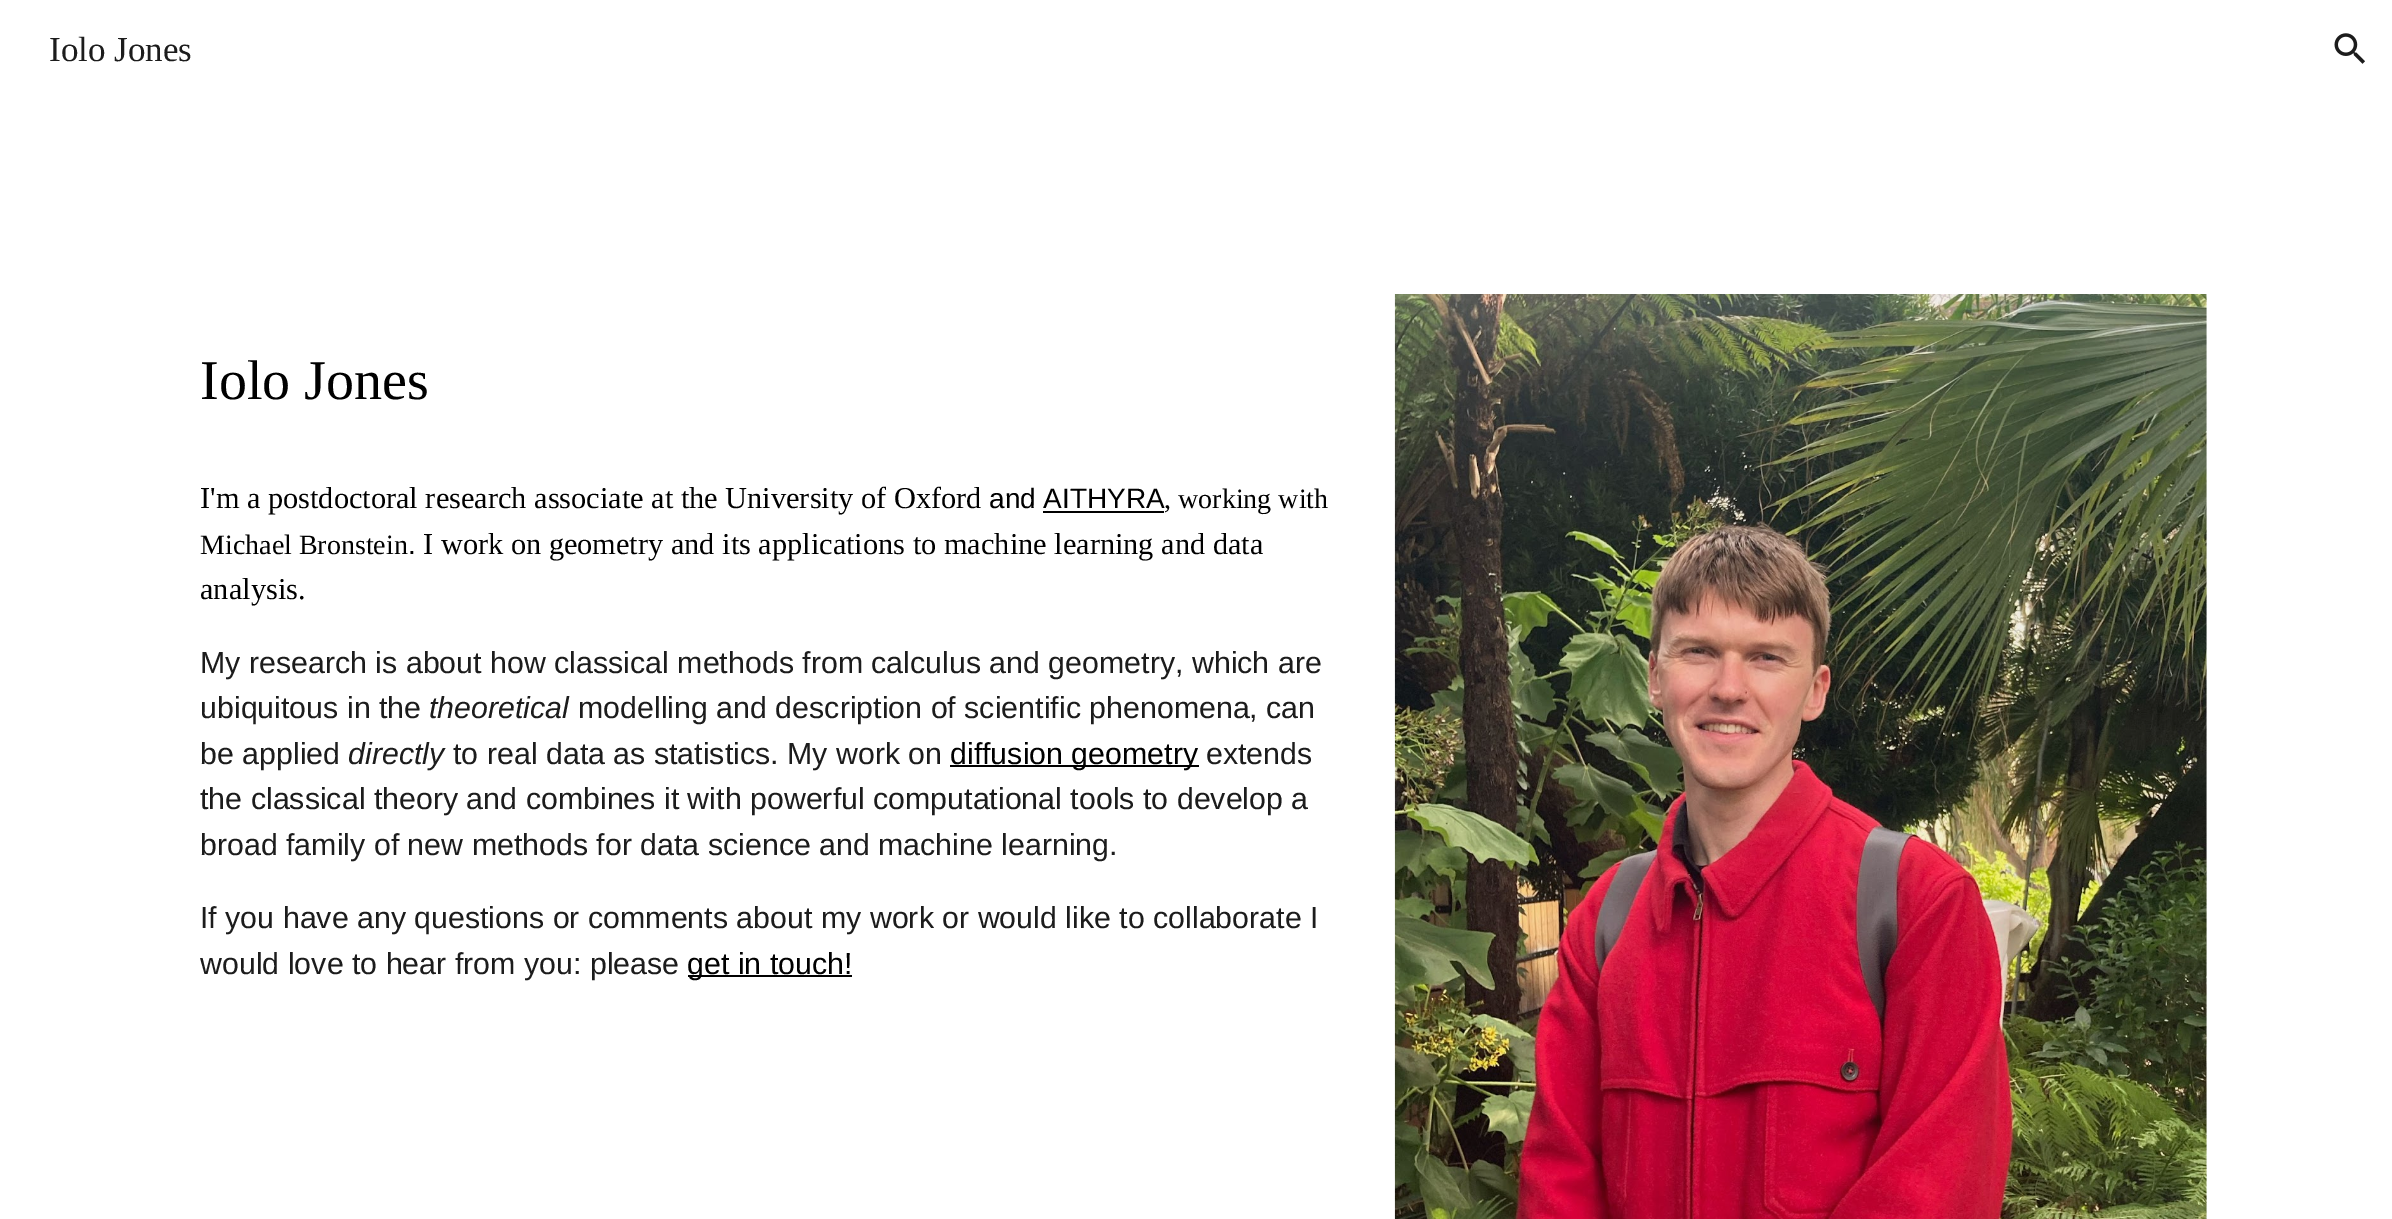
%!PS-Adobe-3.0
%%BoundingBox: 0 0 2392 1219
%%LanguageLevel: 3
%%Pages: 1
%%EndComments
%%BeginProlog
/setink { dup -16 bitshift 255 div exch dup -8 bitshift 255 and 255 div exch 255 and 255 div setrgbcolor } def
/usefont { [ exch dup neg 0 0 3 -1 roll 0 0 ] selectfont } def
/drawimage { 5 dict begin { /h /w /y /x /name } { exch def } forall
  gsave x y translate w h scale
  w h 8 [w 0 0 h 0 0] name (r) file false 3 colorimage grestore end } def
%%EndProlog
%%BeginSetup
<< /PageSize [2392 1219] >> setpagedevice
%%EndSetup
%%Page: 1 1
0 1219 translate 1 -1 scale
4 setmiterlimit
16#FFFFFF setink
0 0 2392 1219 rectfill
/LiberationSerif-Regular 35 usefont
16#1C1C1C setink
49 61 moveto (Iolo Jones) show
(img1.raw) 2334 33 31 31 drawimage
/LiberationSerif-Regular 56 usefont
16#000000 setink
200 399 moveto (Iolo Jones) show
/LiberationSerif-Regular 30.35 usefont
200 508 moveto (I'm a postdoctoral research associate at the University of Oxford) show
/LiberationSans-Regular 28 usefont
989 508 moveto (and AITHYRA) show
/LiberationSerif-Regular 28 usefont
1164 508 moveto (, working with) show
1043 511 121 2 rectfill
200 554 moveto (Michael Bronstein) show
/LiberationSans-Regular 28 usefont
408 554 moveto (.) show
/LiberationSerif-Regular 30.35 usefont
423 554 moveto (I work on geometry and its applications to machine learning and data) show
200 599 moveto (analysis.) show
/LiberationSans-Regular 30.35 usefont
16#1C1C1C setink
200 673 moveto (My research is about how classical methods from calculus and geometry, which are) show
200 718 moveto (ubiquitous in the) show
/LiberationSans-Italic 30.35 usefont
429 718 moveto (theoretical) show
/LiberationSans-Regular 30.35 usefont
578 718 moveto (modelling and description of scientific phenomena, can) show
200 764 moveto (be applied) show
/LiberationSans-Italic 30.35 usefont
348 764 moveto (directly) show
/LiberationSans-Regular 30.35 usefont
453 764 moveto (to real data as statistics. My work on) show
16#000000 setink
950 765 249 2 rectfill
950 764 moveto (diffusion geometry) show
16#1C1C1C setink
[
    [(extends) 1206 764]
    [(the classical theory and combines it with powerful computational tools to develop a) 200 809]
    [(broad family of new methods for data science and machine learning.) 200 855]
    [(If you have any questions or comments about my work or would like to collaborate I) 200 928]
    [(would love to hear from you: please) 200 974]
] { aload pop moveto show } forall
16#000000 setink
688 975 164 2 rectfill
687 974 moveto (get in touch!) show
(img2.raw) 1394 294 813 925 drawimage
showpage
%%EOF
